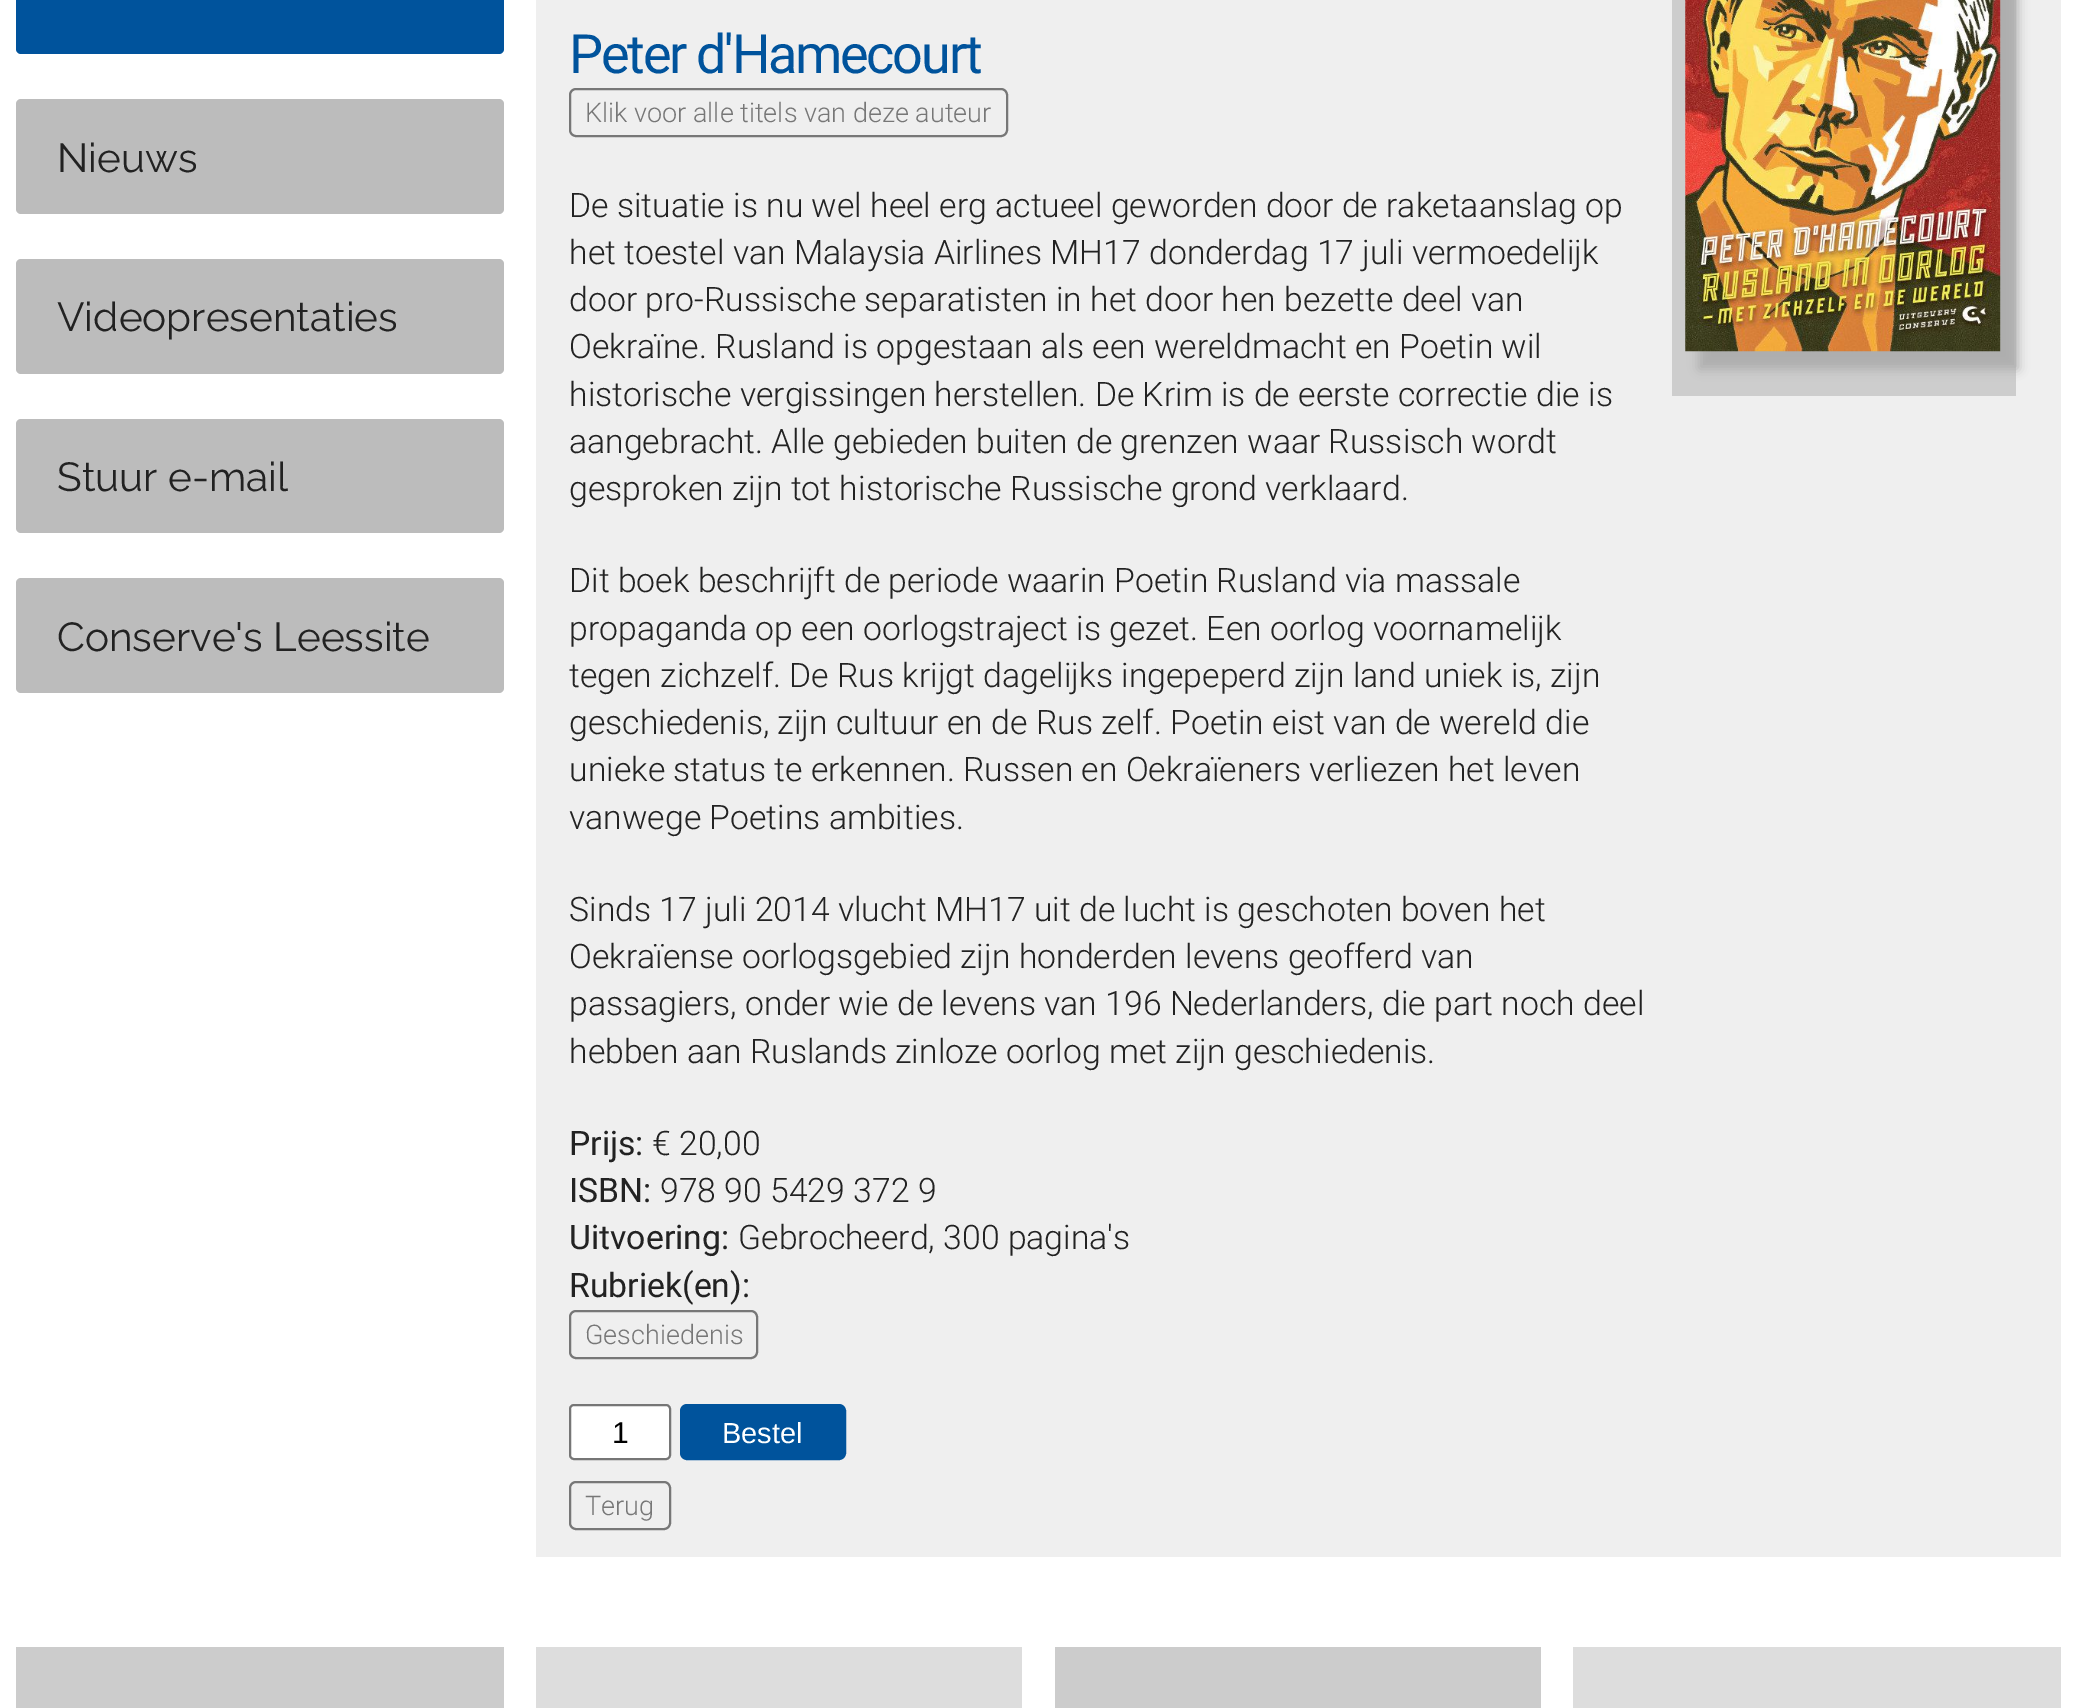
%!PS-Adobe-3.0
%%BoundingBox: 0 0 2076 1708
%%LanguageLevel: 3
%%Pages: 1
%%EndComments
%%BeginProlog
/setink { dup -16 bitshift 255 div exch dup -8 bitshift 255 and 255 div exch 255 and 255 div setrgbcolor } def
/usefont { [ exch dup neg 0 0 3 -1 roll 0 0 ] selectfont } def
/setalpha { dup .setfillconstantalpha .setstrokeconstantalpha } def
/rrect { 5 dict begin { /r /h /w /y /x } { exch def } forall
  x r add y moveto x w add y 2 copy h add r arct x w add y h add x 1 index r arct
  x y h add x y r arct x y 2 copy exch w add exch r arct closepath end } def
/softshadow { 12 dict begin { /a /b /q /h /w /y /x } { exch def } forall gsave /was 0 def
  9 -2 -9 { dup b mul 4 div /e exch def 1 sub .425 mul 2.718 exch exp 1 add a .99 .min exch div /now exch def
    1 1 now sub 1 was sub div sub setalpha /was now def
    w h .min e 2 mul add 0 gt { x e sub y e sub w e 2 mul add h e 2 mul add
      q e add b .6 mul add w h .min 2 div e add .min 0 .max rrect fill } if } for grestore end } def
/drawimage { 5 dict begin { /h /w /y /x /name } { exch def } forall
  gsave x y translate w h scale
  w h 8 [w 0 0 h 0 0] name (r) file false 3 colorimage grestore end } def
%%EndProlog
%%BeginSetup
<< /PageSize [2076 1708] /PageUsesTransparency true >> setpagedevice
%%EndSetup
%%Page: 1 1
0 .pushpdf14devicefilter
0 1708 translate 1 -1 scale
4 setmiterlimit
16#FFFFFF setink
0 0 2076 1708 rectfill
16#00539C setink
16 -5 488 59 5 rrect fill
16#BCBCBC setink
16 99 488 115 5 rrect fill
/Raleway-Regular 40.5 usefont
16#222222 setink
57 172 moveto (Nieuws) show
16#BCBCBC setink
16 259 488 115 5 rrect fill
16#222222 setink
57 331 moveto (Videopresentaties) show
16#BCBCBC setink
16 419 488 114 5 rrect fill
16#222222 setink
57 491 moveto (Stuur e-mail) show
16#BCBCBC setink
16 578 488 115 5 rrect fill
16#222222 setink
57 651 moveto (Conserve's Leessite) show
16#EFEFEF setink
536 0 1525 1557 rectfill
/Roboto-Regular 54 usefont
16#00539C setink
569 73 moveto -2.25 0 (Peter d'Hamecourt) ashow
16#777777 setink
2 setlinewidth
570 89 437 47 6 rrect stroke
/Roboto-Light 27 usefont
585 122 moveto (Klik voor alle titels van deze auteur) show
/Roboto-Light 33.75 usefont
16#222222 setink
[
    [(De situatie is nu wel heel erg actueel geworden door de raketaanslag op) 569 217]
    [(het toestel van Malaysia Airlines MH17 donderdag 17 juli vermoedelijk) 569 264]
    [(door pro-Russische separatisten in het door hen bezette deel van) 569 311]
    [(Oekraïne. Rusland is opgestaan als een wereldmacht en Poetin wil) 569 358]
    [(historische vergissingen herstellen. De Krim is de eerste correctie die is) 569 406]
    [(aangebracht. Alle gebieden buiten de grenzen waar Russisch wordt) 569 453]
    [(gesproken zijn tot historische Russische grond verklaard.) 569 500]
    [(Dit boek beschrijft de periode waarin Poetin Rusland via massale) 569 592]
    [(propaganda op een oorlogstraject is gezet. Een oorlog voornamelijk) 569 640]
    [(tegen zichzelf. De Rus krijgt dagelijks ingepeperd zijn land uniek is, zijn) 569 687]
    [(geschiedenis, zijn cultuur en de Rus zelf. Poetin eist van de wereld die) 569 734]
    [(unieke status te erkennen. Russen en Oekraïeners verliezen het leven) 569 781]
    [(vanwege Poetins ambities.) 569 829]
    [(Sinds 17 juli 2014 vlucht MH17 uit de lucht is geschoten boven het) 569 921]
    [(Oekraïense oorlogsgebied zijn honderden levens geofferd van) 569 968]
    [(passagiers, onder wie de levens van 196 Nederlanders, die part noch deel) 569 1015]
    [(hebben aan Ruslands zinloze oorlog met zijn geschiedenis.) 569 1063]
] { aload pop moveto show } forall
/Roboto-Regular 33.75 usefont
569 1155 moveto (Prijs:) show
/Roboto-Light 33.75 usefont
652 1155 moveto (€ 20,00) show
/Roboto-Regular 33.75 usefont
569 1202 moveto (ISBN:) show
/Roboto-Light 33.75 usefont
660 1202 moveto (978 90 5429 372 9) show
/Roboto-Regular 33.75 usefont
569 1249 moveto (Uitvoering:) show
/Roboto-Light 33.75 usefont
738 1249 moveto (Gebrocheerd, 300 pagina's) show
/Roboto-Regular 33.75 usefont
569 1297 moveto (Rubriek\(en\):) show
16#777777 setink
570 1311 187 47 6 rrect stroke
/Roboto-Light 27 usefont
585 1344 moveto (Geschiedenis) show
16#FFFFFF setink
570 1405 100 54 4 rrect gsave fill grestore
16#767676 setink
stroke
/LiberationSans-Regular 30 usefont
16#000000 setink
612 1443 moveto (1) show
16#00539C setink
681 1405 164 54 6 rrect gsave fill grestore
stroke
/LiberationSans-Regular 29 usefont
16#FFFFFF setink
722 1443 moveto (Bestel) show
16#CDCDCD setink
1672 0 344 396 rectfill
16#ADADAD setink
1699 -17 319 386 0 5.5 1 softshadow
(img1.raw) 1685 0 316 352 drawimage
16#777777 setink
570 1482 100 47 6 rrect stroke
/Roboto-Light 27 usefont
585 1515 moveto (Terug) show
[
    [16 1647 488 61 16#CCCCCC]
    [536 1647 486 61 16#DDDDDD]
    [1055 1647 486 61 16#CCCCCC]
    [1573 1647 488 61 16#DDDDDD]
] { aload pop setink rectfill } forall
.poppdf14devicefilter showpage
%%EOF
